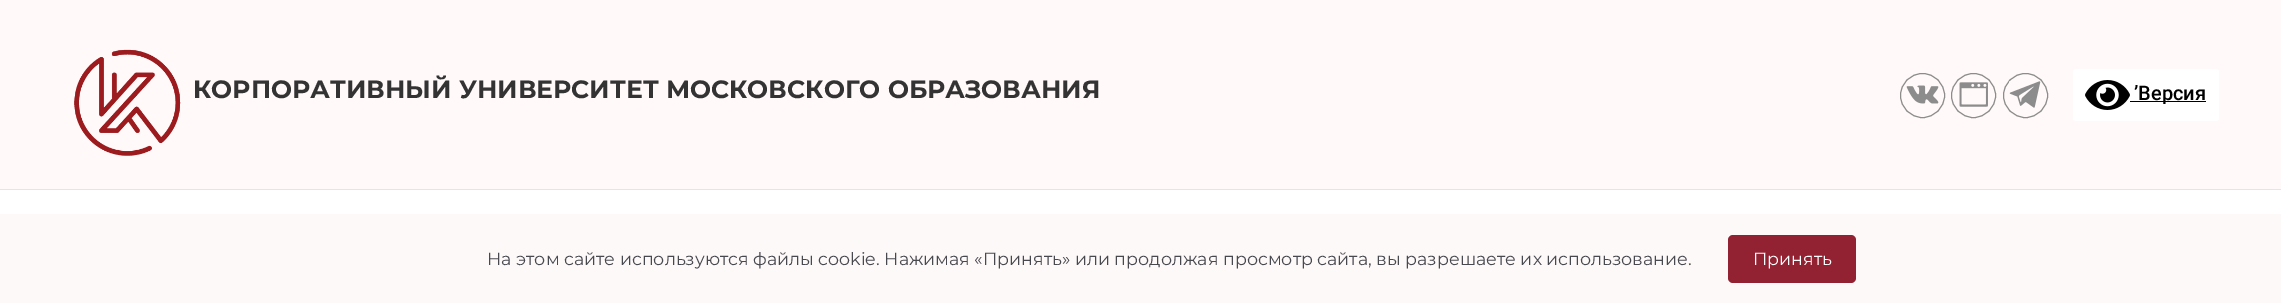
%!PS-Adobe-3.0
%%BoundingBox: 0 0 2281 303
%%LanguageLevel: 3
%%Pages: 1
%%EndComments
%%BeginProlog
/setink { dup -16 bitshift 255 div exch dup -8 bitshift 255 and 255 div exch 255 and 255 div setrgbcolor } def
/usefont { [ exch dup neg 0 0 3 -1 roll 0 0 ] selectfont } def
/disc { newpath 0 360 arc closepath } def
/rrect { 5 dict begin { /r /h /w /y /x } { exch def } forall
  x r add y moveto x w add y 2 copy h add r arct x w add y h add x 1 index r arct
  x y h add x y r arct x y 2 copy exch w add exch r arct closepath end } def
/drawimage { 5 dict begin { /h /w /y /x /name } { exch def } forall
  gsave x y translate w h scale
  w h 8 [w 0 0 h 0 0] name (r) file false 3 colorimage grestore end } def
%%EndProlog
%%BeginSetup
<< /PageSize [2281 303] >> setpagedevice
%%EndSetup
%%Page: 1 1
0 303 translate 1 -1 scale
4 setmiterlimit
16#FFFFFF setink
0 0 2281 303 rectfill
16#FFF9F9 setink
0 0 2281 189 rectfill
(img1.raw) 74 49 107 107 drawimage
/Montserrat-Bold 25 usefont
16#333333 setink
193 98 moveto (КОРПОРАТИВНЫЙ УНИВЕРСИТЕТ МОСКОВСКОГО ОБРАЗОВАНИЯ) show
16#8C8C8C setink
1922.5 95.5 22 disc stroke
(img2.raw) 1906 85 33 19 drawimage
1973.5 95.5 22 disc stroke
(img3.raw) 1959 82 29 25 drawimage
2025.5 95.5 22 disc stroke
(img4.raw) 2009 81 32 27 drawimage
16#FFFFFF setink
2073 69 146 52 2.5 rrect fill
(img5.raw) 2085 80 45 30 drawimage
16#000000 setink
2130 101 76 1 rectfill
/Roboto-Medium 20 usefont
2134 100 moveto (’Версия) show
16#E9E3E3 setink
0 189 2281 1 rectfill
16#FEF9F9 setink
0 214 2281 89 rectfill
/Montserrat-Regular 17.5 usefont
16#47494F setink
487 265 moveto (На этом сайте используются файлы cookie. Нажимая «Принять» или продолжая просмотр сайта, вы разрешаете их использование.) show
16#922232 setink
1728 235 128 48 5 rrect fill
16#FFFFFF setink
1753 265 moveto (Принять) show
showpage
%%EOF
